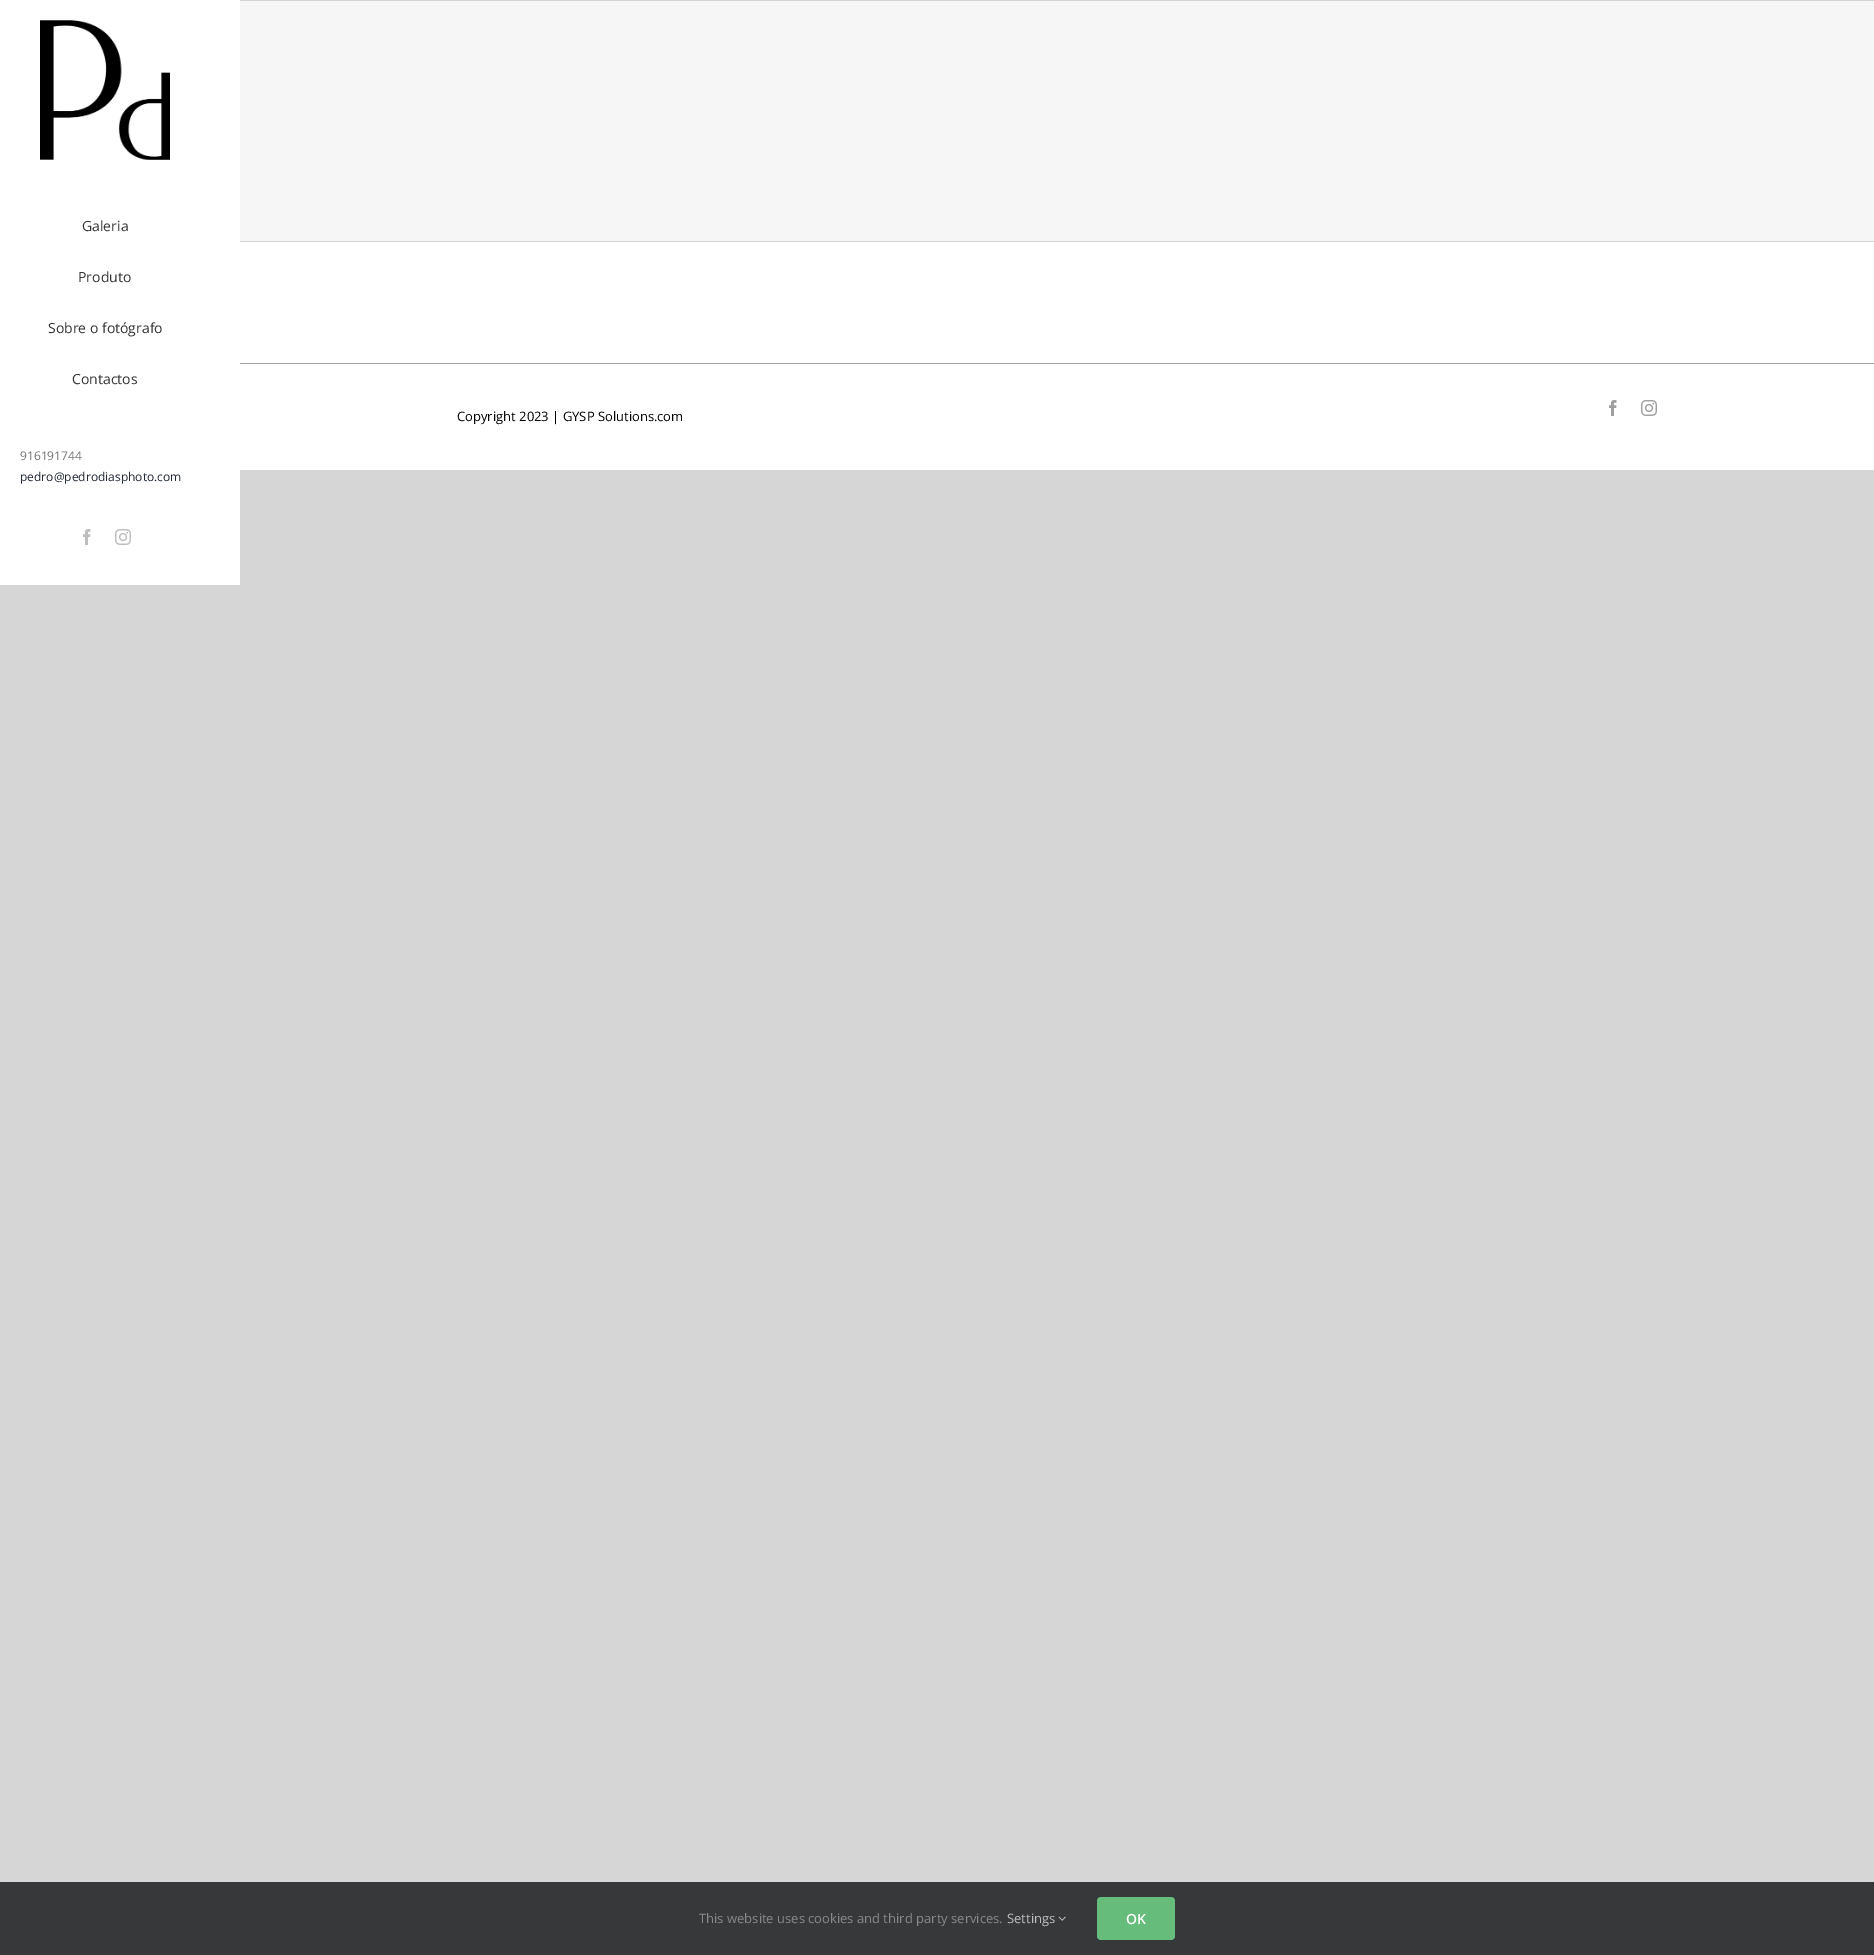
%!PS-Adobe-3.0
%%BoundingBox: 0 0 1874 1955
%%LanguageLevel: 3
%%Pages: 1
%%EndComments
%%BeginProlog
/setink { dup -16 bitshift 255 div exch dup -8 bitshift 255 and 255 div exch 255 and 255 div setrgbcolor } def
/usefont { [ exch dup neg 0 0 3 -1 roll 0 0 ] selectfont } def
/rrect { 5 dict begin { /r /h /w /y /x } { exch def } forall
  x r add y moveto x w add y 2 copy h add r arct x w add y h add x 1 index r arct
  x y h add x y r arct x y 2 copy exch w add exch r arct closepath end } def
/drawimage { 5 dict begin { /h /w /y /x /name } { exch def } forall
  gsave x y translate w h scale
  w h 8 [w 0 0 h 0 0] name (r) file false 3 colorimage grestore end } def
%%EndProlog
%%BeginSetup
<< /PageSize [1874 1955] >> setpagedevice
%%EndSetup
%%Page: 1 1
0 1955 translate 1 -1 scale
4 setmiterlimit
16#D7D6D6 setink
0 0 1874 1955 rectfill
[
    [240 242 1634 228 16#FFFFFF]
    [240 1 1634 240 16#F6F6F6]
    [240 0 1634 1 16#D2D3D4]
    [240 241 1634 1 16#D2D3D4]
    [0 0 240 585 16#FFFFFF]
] { aload pop setink rectfill } forall
(img1.raw) 40 20 130 140 drawimage
/OpenSans-Regular 14 usefont
16#333333 setink
[
    [(Galeria) 82 231]
    [(Produto) 78 282]
    [(Sobre o fotógrafo) 48 333]
    [(Contactos) 72 384]
] { aload pop moveto show } forall
/OpenSans-Regular 12 usefont
16#747474 setink
20 460 moveto (916191744) show
16#212934 setink
20 481 moveto (pedro@pedrodiasphoto.com) show
(img2.raw) 83 529 8 16 drawimage
(img3.raw) 115 529 16 16 drawimage
16#A0A0A0 setink
240 363 1634 1 rectfill
(img4.raw) 1609 400 8 16 drawimage
(img5.raw) 1641 400 16 16 drawimage
/OpenSans-Regular 13 usefont
16#000000 setink
457 421 moveto (Copyright 2023 | GYSP Solutions.com) show
16#363839 setink
0 1882 1874 73 rectfill
16#8C8989 setink
699 1923 moveto (This website uses cookies and third party services.) show
16#BFBFBF setink
1007 1923 moveto (Settings) show
(img6.raw) 1058 1916 8 5 drawimage
16#65BC7B setink
1097 1897 78 43 4 rrect fill
/OpenSans-SemiBold 14 usefont
16#FFFFFF setink
1126 1924 moveto (OK) show
showpage
%%EOF
